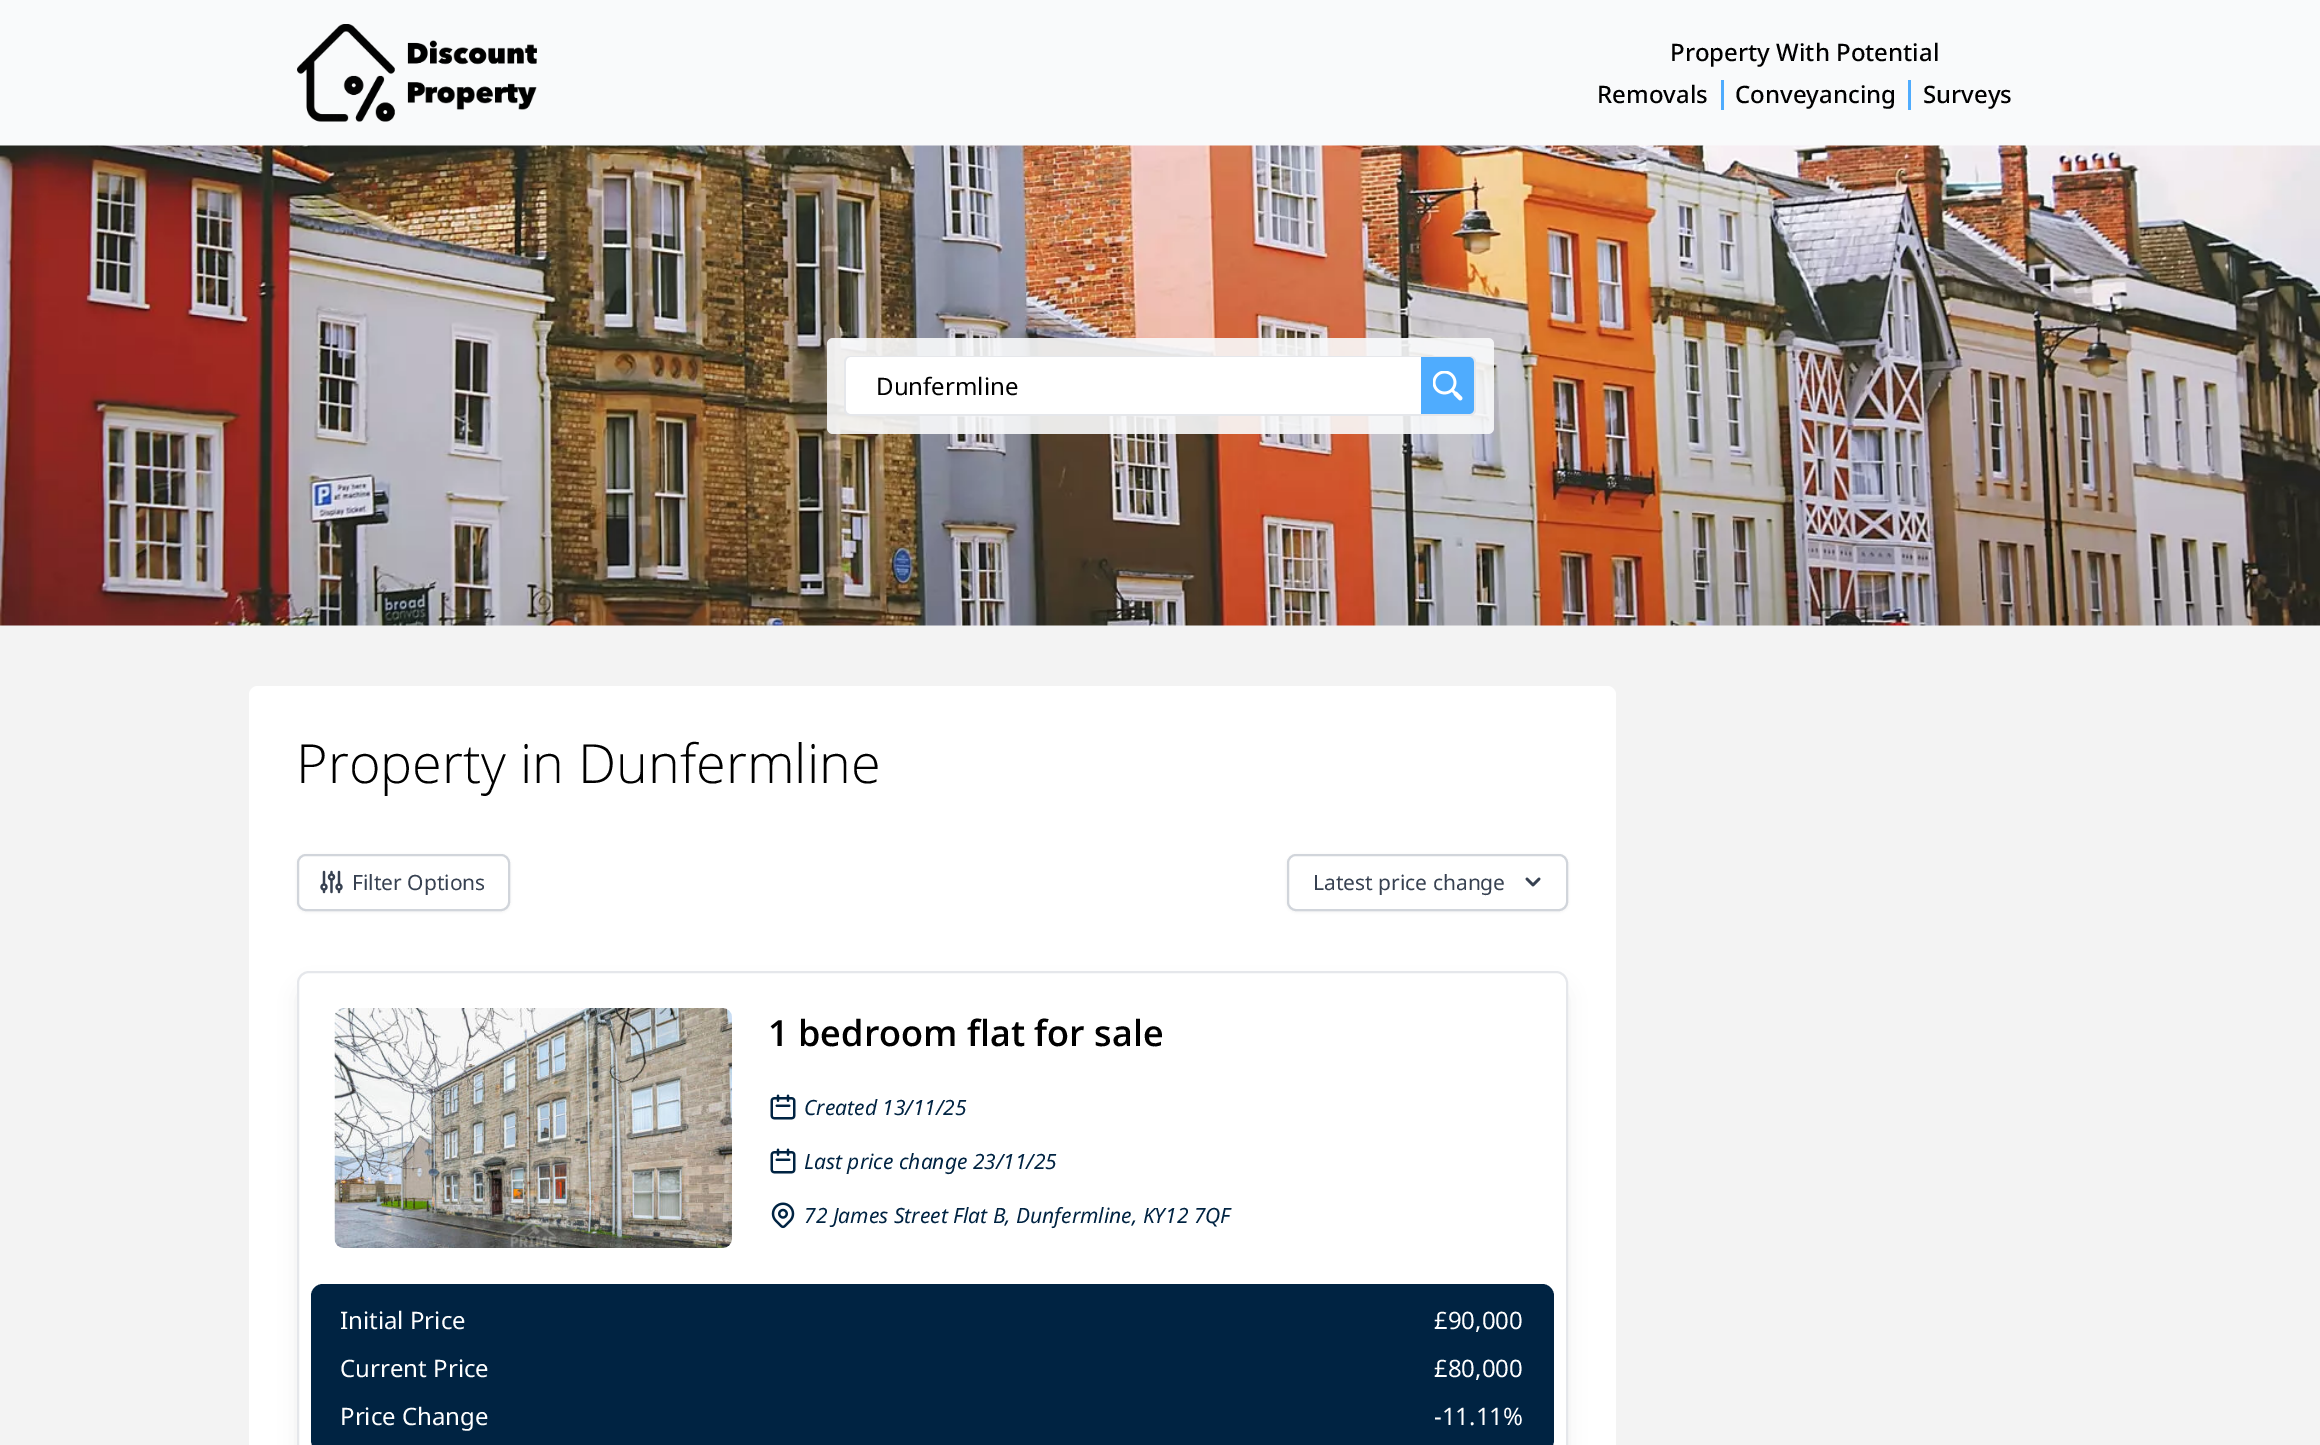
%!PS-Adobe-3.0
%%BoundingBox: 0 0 2320 1445
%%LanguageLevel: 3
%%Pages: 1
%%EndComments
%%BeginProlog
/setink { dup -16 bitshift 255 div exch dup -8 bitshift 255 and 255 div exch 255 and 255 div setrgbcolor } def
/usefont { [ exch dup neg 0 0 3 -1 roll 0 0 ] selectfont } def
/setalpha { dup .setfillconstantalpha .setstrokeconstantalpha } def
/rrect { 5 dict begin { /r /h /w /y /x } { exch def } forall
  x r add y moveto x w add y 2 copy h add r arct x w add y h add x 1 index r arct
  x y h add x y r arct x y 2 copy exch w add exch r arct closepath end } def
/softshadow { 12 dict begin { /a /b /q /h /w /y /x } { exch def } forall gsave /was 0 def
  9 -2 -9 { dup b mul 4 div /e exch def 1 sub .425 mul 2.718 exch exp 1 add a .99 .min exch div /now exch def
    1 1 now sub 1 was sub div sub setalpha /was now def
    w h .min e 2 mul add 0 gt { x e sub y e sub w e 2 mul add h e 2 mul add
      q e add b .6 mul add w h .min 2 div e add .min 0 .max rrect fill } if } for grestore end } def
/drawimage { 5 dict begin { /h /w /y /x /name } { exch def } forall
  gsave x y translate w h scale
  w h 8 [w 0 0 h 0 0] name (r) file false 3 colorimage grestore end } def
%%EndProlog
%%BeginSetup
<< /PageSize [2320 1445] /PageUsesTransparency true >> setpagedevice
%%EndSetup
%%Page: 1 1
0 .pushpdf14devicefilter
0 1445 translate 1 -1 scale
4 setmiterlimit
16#F3F3F3 setink
0 0 2320 1445 rectfill
16#F9FAFB setink
0 0 2320 146 rectfill
(img1.raw) 297 24 240 98 drawimage
/NotoSans-Medium 24 usefont
16#000000 setink
1670 61 moveto (Property With Potential) show
16#4FACFE setink
1721 80 3 30 rectfill
16#000000 setink
1597 103 moveto (Removals) show
16#4FACFE setink
1908 80 3 30 rectfill
16#000000 setink
1735 103 moveto (Conveyancing) show
1923 103 moveto (Surveys) show
(img2.raw) 0 145 2320 481 drawimage
0.9 setalpha
16#F9FAFB setink
827 338 667 96 6 rrect fill
1 setalpha
16#FFFFFF setink
851 357 moveto 1421 357 lineto 1421 414 lineto 851 414 lineto 848 414 846 412 846 409 curveto 846 362 lineto 846 359 848 357 851 357 curveto closepath fill
16#E5E7EB setink
850 356 moveto 1420 356 lineto 1420 416 lineto 850 416 lineto 847 416 844 413 844 410 curveto 844 362 lineto 844 358 847 356 850 356 curveto closepath 850 357 moveto 1420 357 lineto 1420 414 lineto 850 414 lineto 848 414 846 412 846 410 curveto 846 362 lineto 846 359 848 357 850 357 curveto closepath eofill
/NotoSans-Regular 24 usefont
16#000000 setink
876 395 moveto (Dunfermline) show
16#4FACFE setink
1421 357 moveto 1470 357 lineto 1473 357 1475 359 1475 362 curveto 1475 409 lineto 1475 412 1473 414 1470 414 curveto 1421 414 lineto closepath fill
16#E5E7EB setink
1420 356 moveto 1470 356 lineto 1473 356 1476 358 1476 362 curveto 1476 410 lineto 1476 413 1473 416 1470 416 curveto 1420 416 lineto closepath 1420 357 moveto 1470 357 lineto 1472 357 1474 359 1474 362 curveto 1474 410 lineto 1474 412 1472 414 1470 414 curveto 1420 414 lineto closepath eofill
(img3.raw) 1433 371 30 30 drawimage
16#FFFFFF setink
249 686 1367 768 9 rrect fill
/OpenSans-Light 54 usefont
16#000000 setink
296 783 moveto (Property in Dunfermline) show
297 855 213 57 9 1.5 0.05 softshadow
16#FFFFFF setink
298 855 211 55 8 rrect gsave fill grestore
16#D1D5DB setink
2 setlinewidth
stroke
(img4.raw) 320 870 23 24 drawimage
/NotoSans-Regular 21 usefont
16#374151 setink
352 890 moveto (Filter Options) show
16#000000 setink
1287 855 281 57 9 1.5 0.05 softshadow
16#FFFFFF setink
1288 855 279 55 8 rrect gsave fill grestore
16#D1D5DB setink
stroke
16#374151 setink
1313 890 moveto (Latest price change) show
(img5.raw) 1525 877 16 10 drawimage
16#000000 setink
302 990 1261 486 8 11 0.1 softshadow
16#FFFFFF setink
298 972 1269 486 11 rrect gsave fill grestore
16#E5E7EB setink
stroke
(img6.raw) 334 1008 398 240 drawimage
/OpenSans-SemiBold 36 usefont
16#000000 setink
768 1046 moveto (1 bedroom flat for sale) show
(img7.raw) 770 1094 26 26 drawimage
/NotoSans-Italic 21 usefont
16#002342 setink
804 1115 moveto (Created 13/11/25) show
(img7.raw) 770 1148 26 26 drawimage
804 1169 moveto (Last price change 23/11/25) show
(img8.raw) 771 1202 24 27 drawimage
804 1223 moveto (72 James Street Flat B, Dunfermline, KY12 7QF) show
311 1284 1243 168 12 rrect fill
/NotoSans-Regular 24 usefont
16#FFFFFF setink
[
    [(Initial Price) 340 1329]
    [(£90,000) 1434 1329]
    [(Current Price) 340 1377]
    [(£80,000) 1434 1377]
    [(Price Change) 340 1425]
    [(-11.11%) 1434 1425]
] { aload pop moveto show } forall
.poppdf14devicefilter showpage
%%EOF
